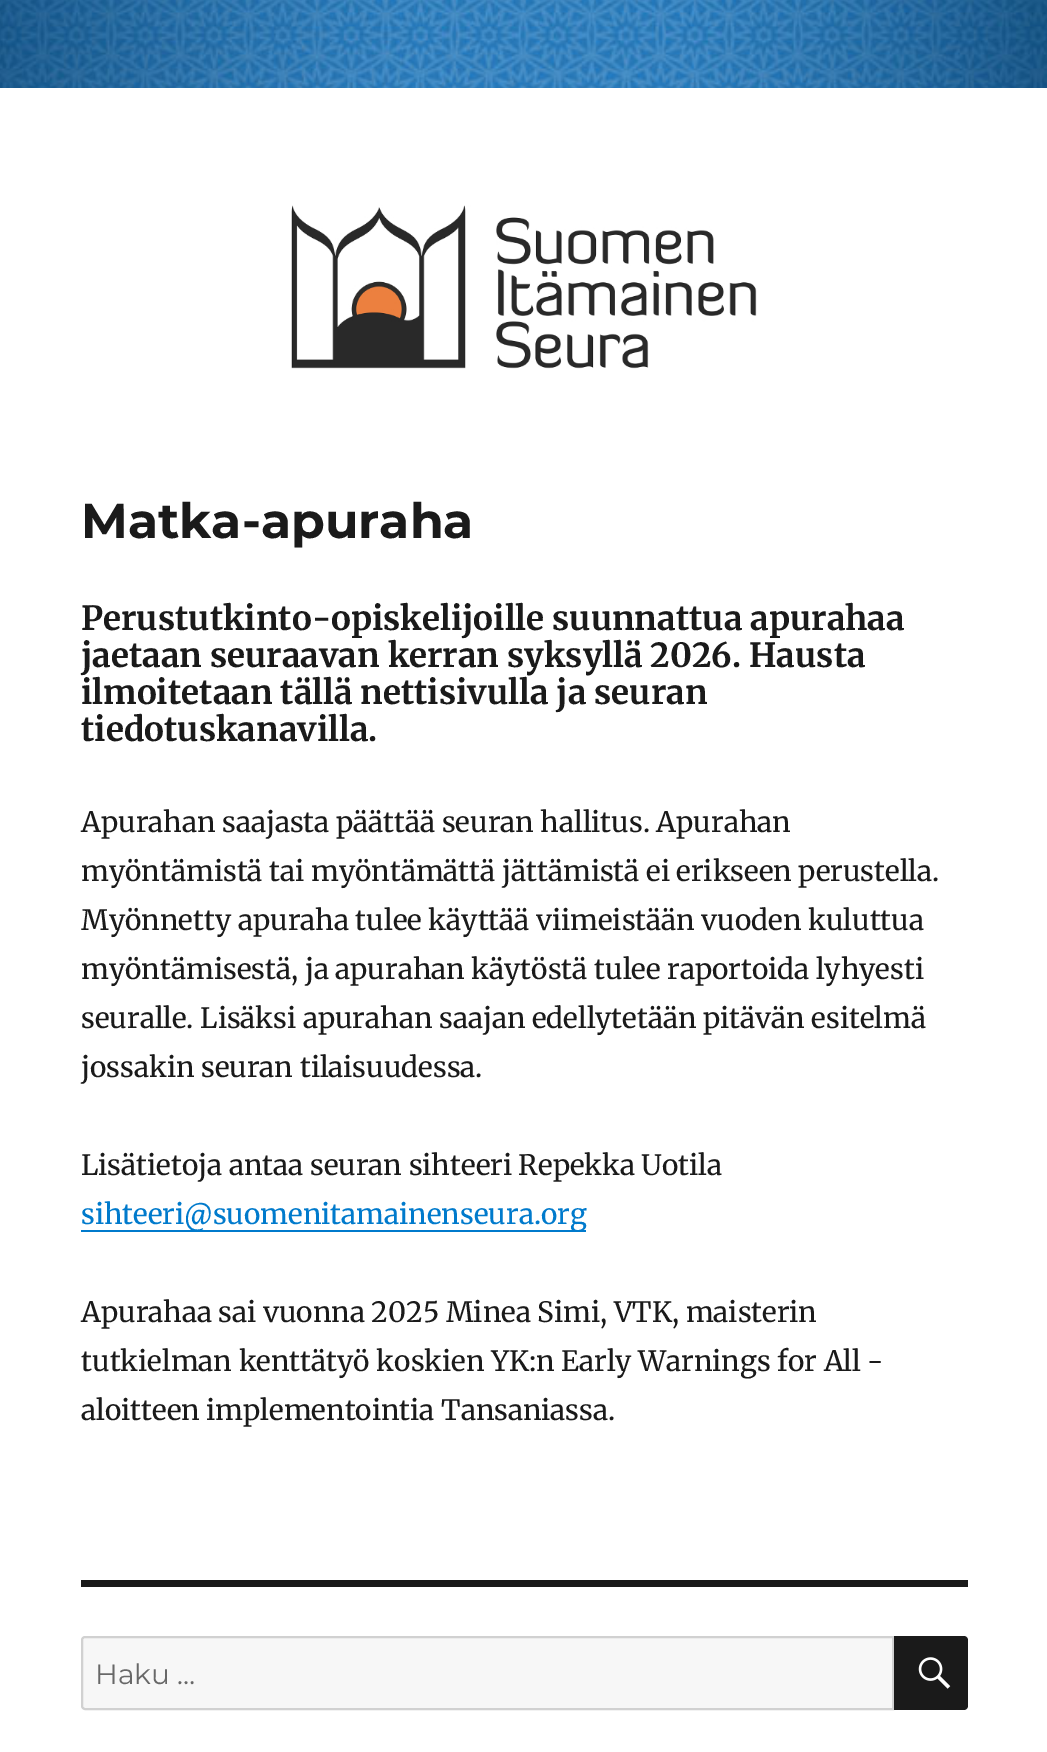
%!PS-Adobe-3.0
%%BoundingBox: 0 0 1047 1752
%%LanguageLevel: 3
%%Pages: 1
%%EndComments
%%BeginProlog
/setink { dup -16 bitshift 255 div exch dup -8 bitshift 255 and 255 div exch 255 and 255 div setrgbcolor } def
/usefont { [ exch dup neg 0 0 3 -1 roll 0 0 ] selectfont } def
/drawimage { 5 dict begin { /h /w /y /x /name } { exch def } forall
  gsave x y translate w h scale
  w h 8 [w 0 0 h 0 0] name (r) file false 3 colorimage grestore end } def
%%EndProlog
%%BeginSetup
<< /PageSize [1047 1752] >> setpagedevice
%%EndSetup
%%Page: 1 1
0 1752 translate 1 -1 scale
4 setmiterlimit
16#FFFFFF setink
0 0 1047 1752 rectfill
(img1.raw) 0 0 1047 88 drawimage
(img2.raw) 291 205 466 164 drawimage
/Montserrat-Bold 49 usefont
16#1A1A1A setink
81 538 moveto (Matka-apuraha) show
/Merriweather-Bold 33.25 usefont
[
    [(Perustutkinto-opiskelijoille suunnattua apurahaa) 81 630]
    [(jaetaan seuraavan kerran syksyllä 2026. Hausta) 81 667]
    [(ilmoitetaan tällä nettisivulla ja seuran) 81 704]
    [(tiedotuskanavilla.) 81 741]
] { aload pop moveto show } forall
/Merriweather-Regular 28 usefont
[
    [(Apurahan saajasta päättää seuran hallitus. Apurahan) 81 832]
    [(myöntämistä tai myöntämättä jättämistä ei erikseen perustella.) 81 881]
    [(Myönnetty apuraha tulee käyttää viimeistään vuoden kuluttua) 81 930]
    [(myöntämisestä, ja apurahan käytöstä tulee raportoida lyhyesti) 81 979]
    [(seuralle. Lisäksi apurahan saajan edellytetään pitävän esitelmä) 81 1028]
    [(jossakin seuran tilaisuudessa.) 81 1077]
    [(Lisätietoja antaa seuran sihteeri Repekka Uotila) 81 1175]
] { aload pop moveto show } forall
16#007ACC setink
81 1230 505 2 rectfill
81 1224 moveto (sihteeri@suomenitamainenseura.org) show
16#1A1A1A setink
[
    [(Apurahaa sai vuonna 2025 Minea Simi, VTK, maisterin) 81 1322]
    [(tutkielman kenttätyö koskien YK:n Early Warnings for All -) 81 1371]
    [(aloitteen implementointia Tansaniassa.) 81 1420]
] { aload pop moveto show } forall
81 1580 887 7 rectfill
16#F7F7F7 setink
85 1637 moveto 893 1637 lineto 893 1709 lineto 85 1709 lineto 83.5 1709 82 1707.5 82 1706 curveto 82 1640 lineto 82 1638.5 83.5 1637 85 1637 curveto closepath gsave fill grestore
16#D1D1D1 setink
2 setlinewidth
stroke
/Montserrat-Regular 28 usefont
16#686868 setink
95 1684 moveto (Haku …) show
16#1A1A1A setink
894 1636 moveto 964 1636 lineto 966 1636 968 1638 968 1640 curveto 968 1706 lineto 968 1708 966 1710 964 1710 curveto 894 1710 lineto closepath fill
(img3.raw) 918 1657 33 32 drawimage
showpage
%%EOF
